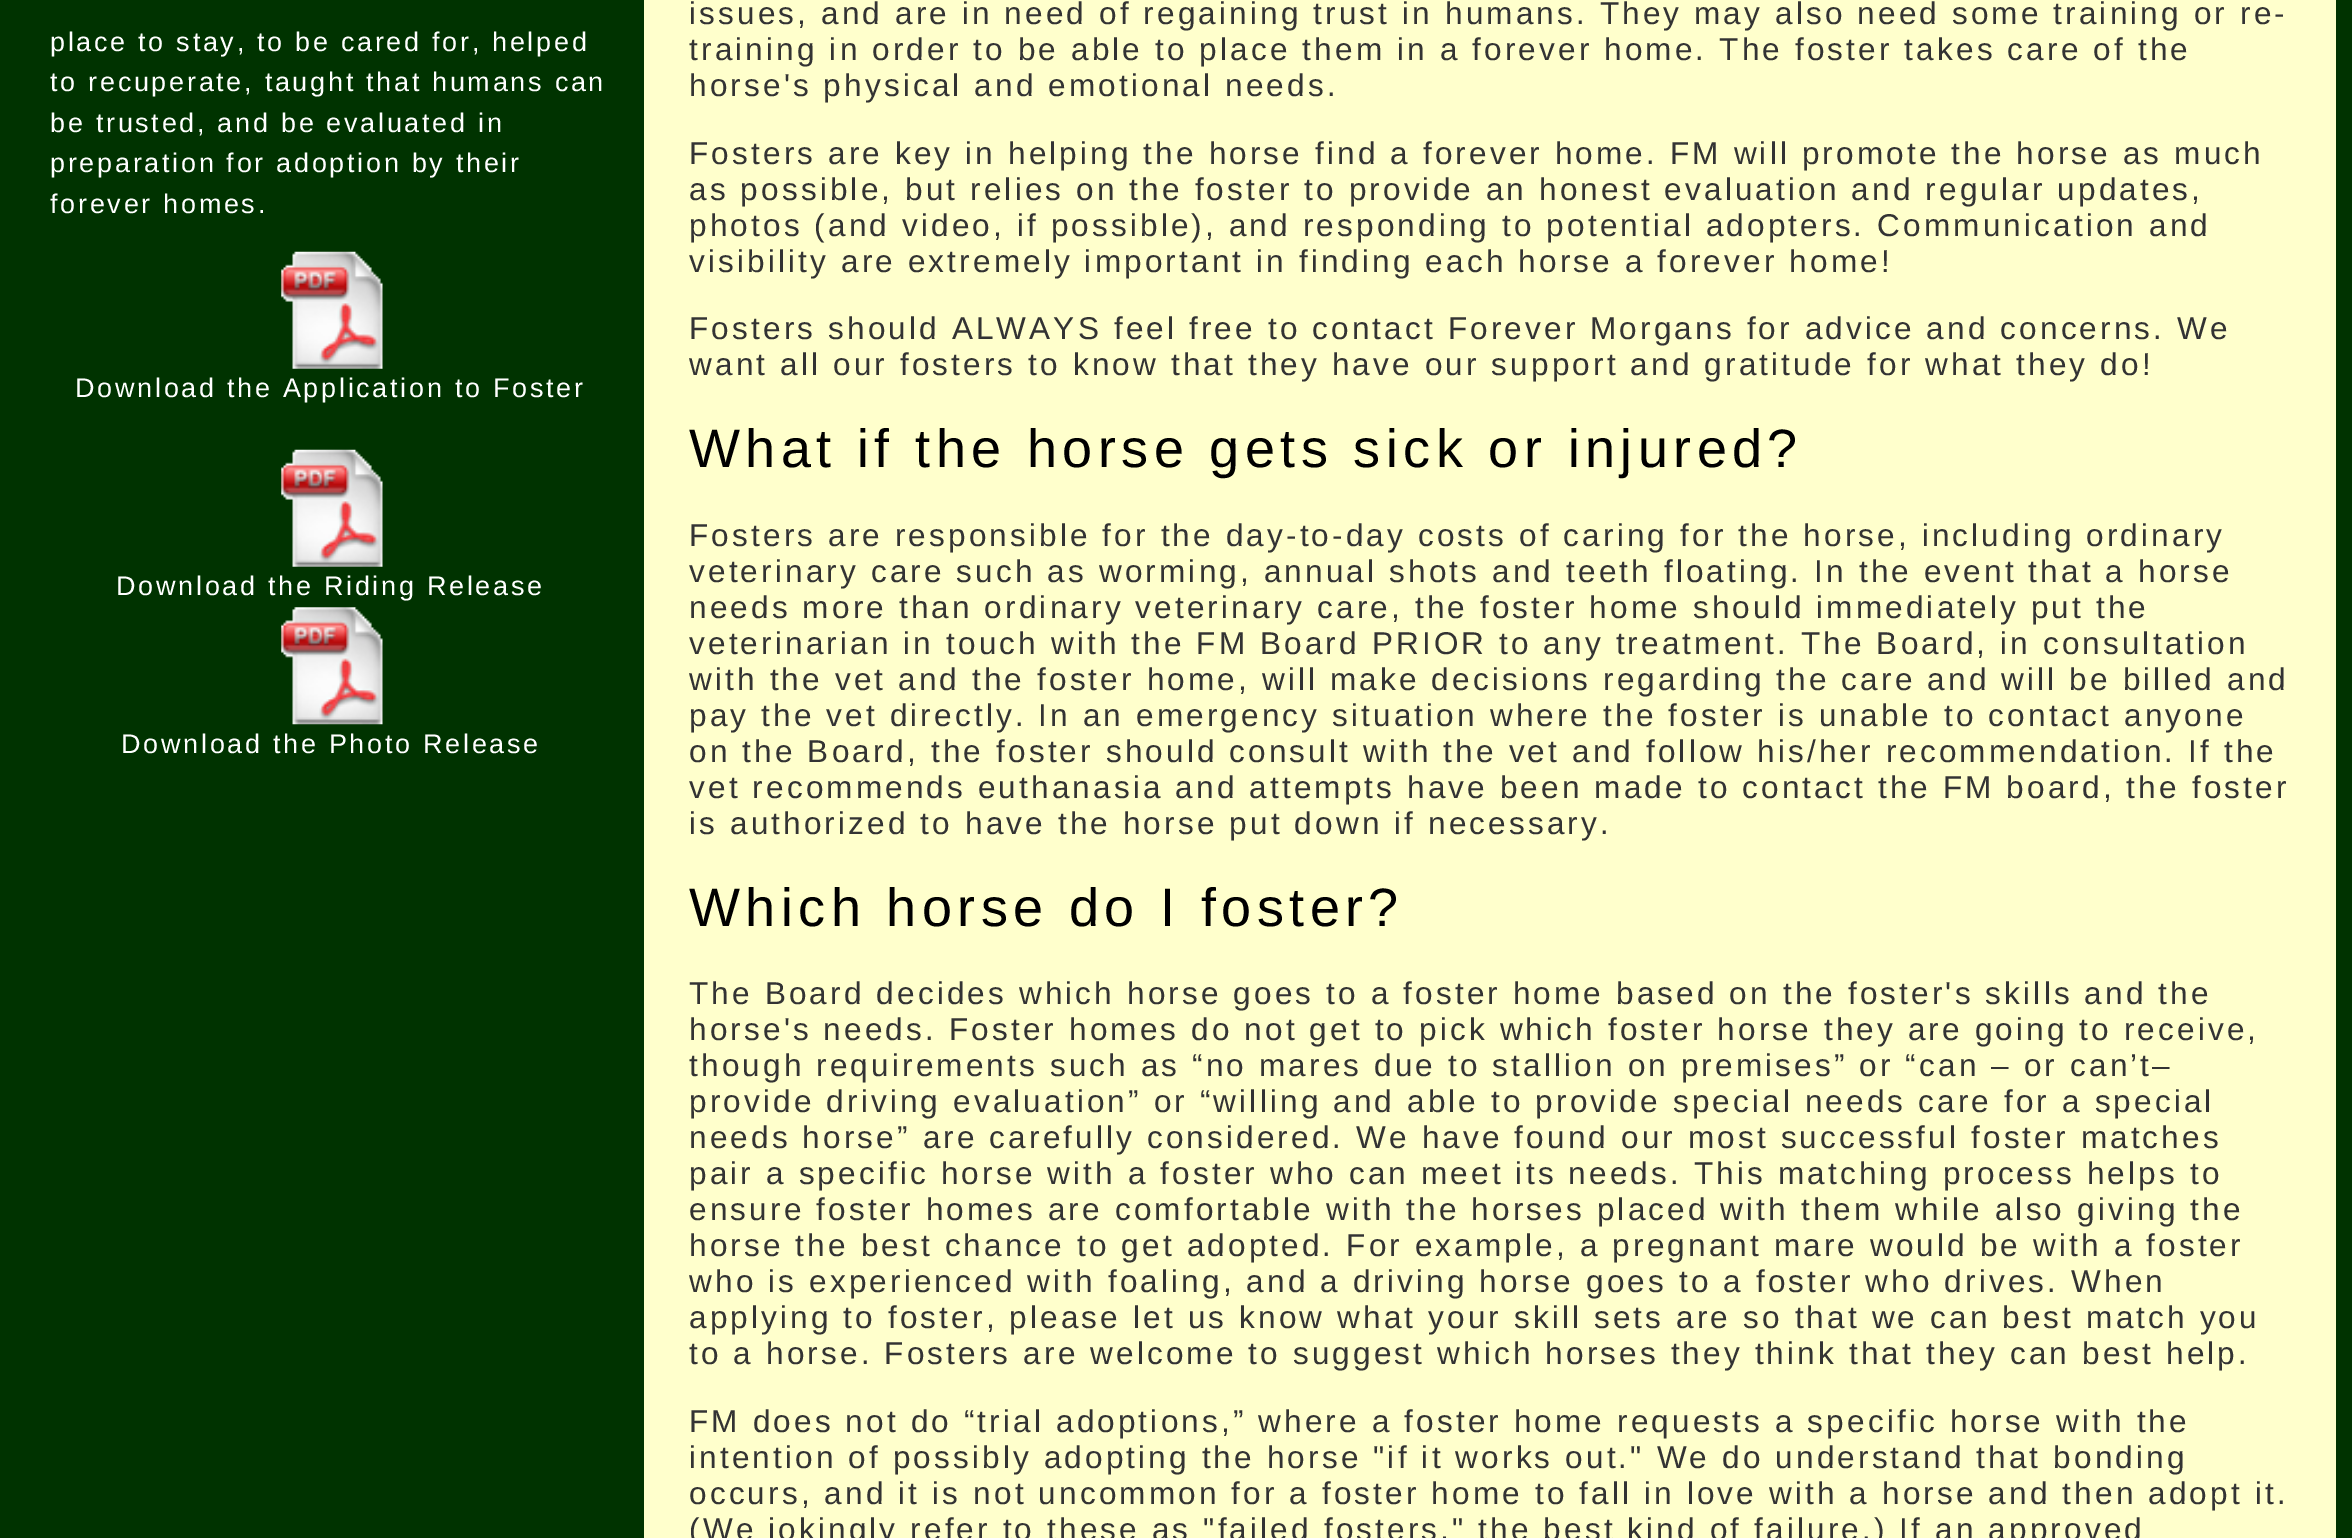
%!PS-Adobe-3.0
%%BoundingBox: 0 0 2352 1538
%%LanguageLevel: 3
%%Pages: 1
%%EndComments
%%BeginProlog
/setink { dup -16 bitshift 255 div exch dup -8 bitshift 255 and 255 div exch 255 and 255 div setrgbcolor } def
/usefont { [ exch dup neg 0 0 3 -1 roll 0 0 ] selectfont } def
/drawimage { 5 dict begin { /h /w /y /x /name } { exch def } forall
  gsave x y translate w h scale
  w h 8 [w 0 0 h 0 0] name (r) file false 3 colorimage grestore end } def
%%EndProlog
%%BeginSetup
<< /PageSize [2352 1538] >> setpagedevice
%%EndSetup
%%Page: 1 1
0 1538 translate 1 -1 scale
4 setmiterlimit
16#003300 setink
0 0 2352 1538 rectfill
/LiberationSans-Regular 27 usefont
16#FFFFFF setink
50 51 moveto 2.7 0 (place to stay, to be cared for, helped) ashow
50 91 moveto 2.7 0 (to recuperate, taught that humans can) ashow
50 132 moveto 2.7 0 (be trusted, and be evaluated in) ashow
50 172 moveto 2.7 0 (preparation for adoption by their) ashow
50 213 moveto 2.7 0 (forever homes.) ashow
(img1.raw) 281 251 102 118 drawimage
75 397 moveto 2.7 0 (Download the Application to Foster) ashow
(img1.raw) 281 449 102 118 drawimage
116 595 moveto 2.7 0 (Download the Riding Release) ashow
(img2.raw) 281 607 102 118 drawimage
121 753 moveto 2.7 0 (Download the Photo Release) ashow
16#FFFFCC setink
644 0 1692 1538 rectfill
/LiberationSans-Regular 31.5 usefont
16#333333 setink
689 24 moveto 3.15 0 (issues, and are in need of regaining trust in humans. They may also need some training or re-) ashow
689 60 moveto 3.15 0 (training in order to be able to place them in a forever home. The foster takes care of the) ashow
689 96 moveto 3.15 0 (horse's physical and emotional needs.) ashow
689 164 moveto 3.15 0 (Fosters are key in helping the horse find a forever home. FM will promote the horse as much) ashow
689 200 moveto 3.15 0 (as possible, but relies on the foster to provide an honest evaluation and regular updates,) ashow
689 236 moveto 3.15 0 (photos \(and video, if possible\), and responding to potential adopters. Communication and) ashow
689 272 moveto 3.15 0 (visibility are extremely important in finding each horse a forever home!) ashow
689 339 moveto 3.15 0 (Fosters should ALWAYS feel free to contact Forever Morgans for advice and concerns. We) ashow
689 375 moveto 3.15 0 (want all our fosters to know that they have our support and gratitude for what they do!) ashow
/LiberationSans-Regular 54 usefont
16#000000 setink
689 467 moveto 5.4 0 (What if the horse gets sick or injured?) ashow
/LiberationSans-Regular 31.5 usefont
16#333333 setink
689 546 moveto 3.15 0 (Fosters are responsible for the day-to-day costs of caring for the horse, including ordinary) ashow
689 582 moveto 3.15 0 (veterinary care such as worming, annual shots and teeth floating. In the event that a horse) ashow
689 618 moveto 3.15 0 (needs more than ordinary veterinary care, the foster home should immediately put the) ashow
689 654 moveto 3.15 0 (veterinarian in touch with the FM Board PRIOR to any treatment. The Board, in consultation) ashow
689 690 moveto 3.15 0 (with the vet and the foster home, will make decisions regarding the care and will be billed and) ashow
689 726 moveto 3.15 0 (pay the vet directly. In an emergency situation where the foster is unable to contact anyone) ashow
689 762 moveto 3.15 0 (on the Board, the foster should consult with the vet and follow his/her recommendation. If the) ashow
689 798 moveto 3.15 0 (vet recommends euthanasia and attempts have been made to contact the FM board, the foster) ashow
689 834 moveto 3.15 0 (is authorized to have the horse put down if necessary.) ashow
/LiberationSans-Regular 54 usefont
16#000000 setink
689 926 moveto 5.4 0 (Which horse do I foster?) ashow
/LiberationSans-Regular 31.5 usefont
16#333333 setink
689 1004 moveto 3.15 0 (The Board decides which horse goes to a foster home based on the foster's skills and the) ashow
689 1040 moveto 3.15 0 (horse's needs. Foster homes do not get to pick which foster horse they are going to receive,) ashow
689 1076 moveto 3.15 0 (though requirements such as “no mares due to stallion on premises” or “can – or can’t–) ashow
689 1112 moveto 3.15 0 (provide driving evaluation” or “willing and able to provide special needs care for a special) ashow
689 1148 moveto 3.15 0 (needs horse” are carefully considered. We have found our most successful foster matches) ashow
689 1184 moveto 3.15 0 (pair a specific horse with a foster who can meet its needs. This matching process helps to) ashow
689 1220 moveto 3.15 0 (ensure foster homes are comfortable with the horses placed with them while also giving the) ashow
689 1256 moveto 3.15 0 (horse the best chance to get adopted. For example, a pregnant mare would be with a foster) ashow
689 1292 moveto 3.15 0 (who is experienced with foaling, and a driving horse goes to a foster who drives. When) ashow
689 1328 moveto 3.15 0 (applying to foster, please let us know what your skill sets are so that we can best match you) ashow
689 1364 moveto 3.15 0 (to a horse. Fosters are welcome to suggest which horses they think that they can best help.) ashow
689 1432 moveto 3.15 0 (FM does not do “trial adoptions,” where a foster home requests a specific horse with the) ashow
689 1468 moveto 3.15 0 (intention of possibly adopting the horse "if it works out." We do understand that bonding) ashow
689 1504 moveto 3.15 0 (occurs, and it is not uncommon for a foster home to fall in love with a horse and then adopt it.) ashow
689 1540 moveto 3.15 0 (\(We jokingly refer to these as "failed fosters," the best kind of failure.\) If an approved) ashow
showpage
%%EOF
